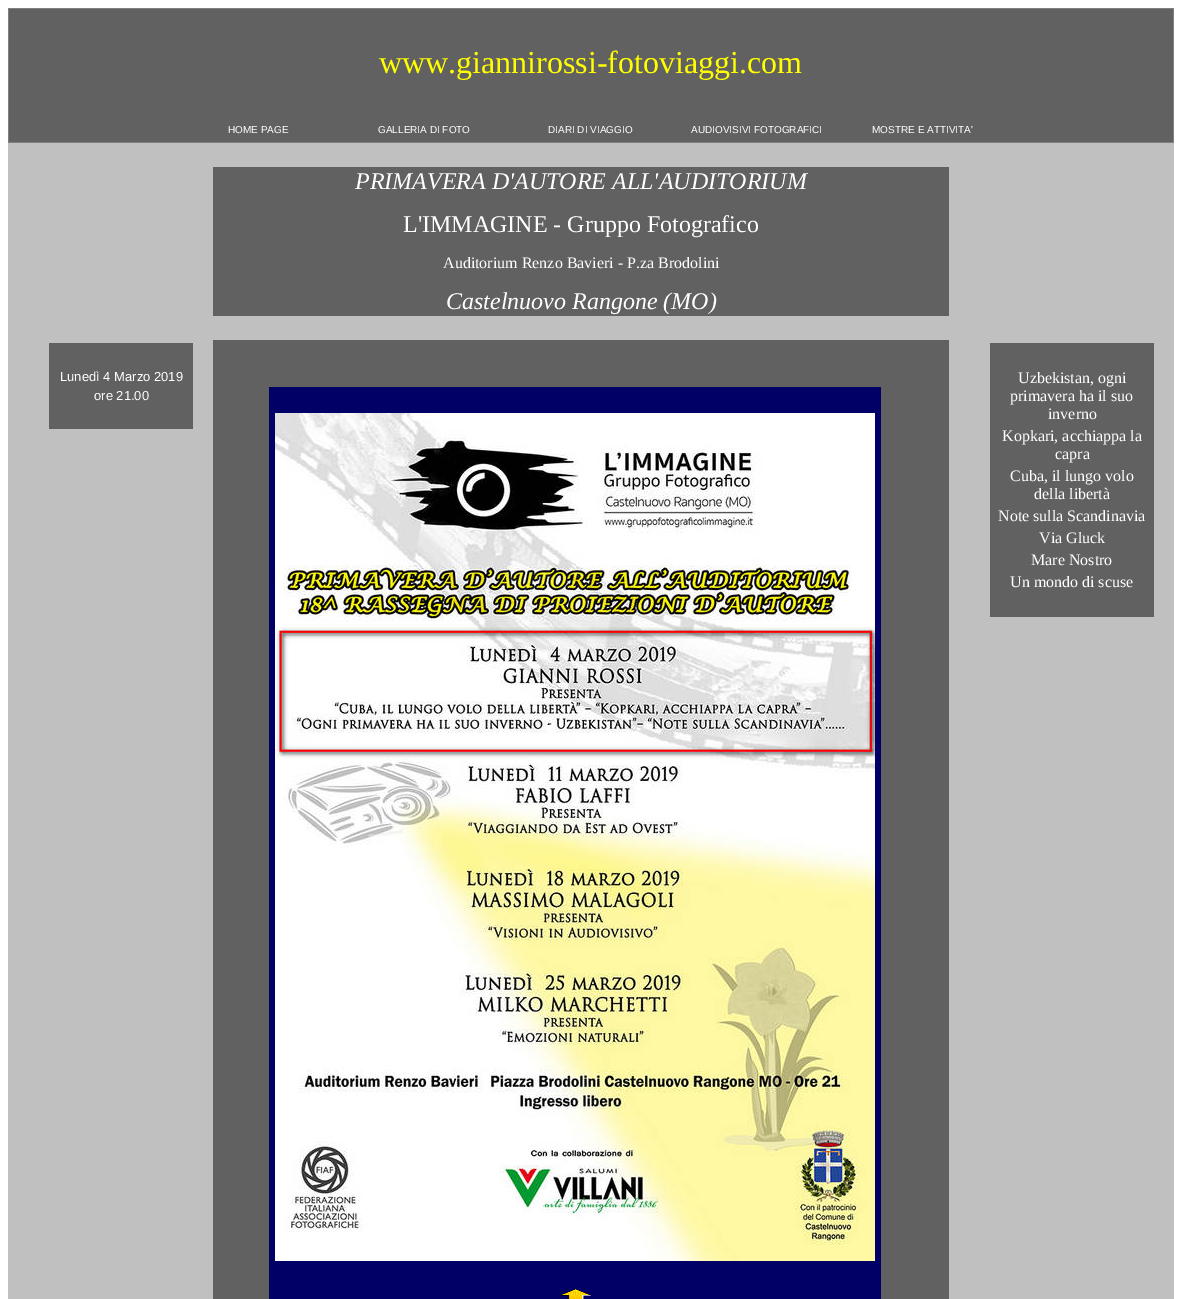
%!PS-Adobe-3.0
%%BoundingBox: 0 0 1182 1299
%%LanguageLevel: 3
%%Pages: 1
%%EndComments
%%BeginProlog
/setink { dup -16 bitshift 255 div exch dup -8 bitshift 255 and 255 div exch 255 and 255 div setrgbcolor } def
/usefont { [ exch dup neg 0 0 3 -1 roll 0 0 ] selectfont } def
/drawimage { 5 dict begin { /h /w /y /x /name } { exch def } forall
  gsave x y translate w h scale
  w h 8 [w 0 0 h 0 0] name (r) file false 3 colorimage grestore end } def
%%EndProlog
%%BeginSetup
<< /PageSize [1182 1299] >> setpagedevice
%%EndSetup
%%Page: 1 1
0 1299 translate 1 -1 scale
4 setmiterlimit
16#FFFFFF setink
0 0 1182 1299 rectfill
16#808080 setink
8 8 1166 135 rectfill
16#616161 setink
9 9 1164 133 rectfill
/LiberationSerif-Regular 32 usefont
16#FFFF00 setink
379 73 moveto (www.giannirossi-fotoviaggi.com) show
/LiberationSans-Regular 10 usefont
16#FFFFFF setink
[
    [(HOME PAGE) 228 133]
    [(GALLERIA DI FOTO) 378 133]
    [(DIARI DI VIAGGIO) 548 133]
    [(AUDIOVISIVI FOTOGRAFICI) 691 133]
    [(MOSTRE E ATTIVITA') 872 133]
] { aload pop moveto show } forall
16#C0C0C0 setink
8 143 1166 1156 rectfill
16#616161 setink
213 167 736 149 rectfill
/LiberationSerif-Italic 24 usefont
16#FFFFFF setink
355 189 moveto (PRIMAVERA D'AUTORE ALL'AUDITORIUM) show
/LiberationSerif-Regular 24 usefont
403 232 moveto (L'IMMAGINE - Gruppo Fotografico) show
/LiberationSerif-Regular 16 usefont
443 268 moveto (Auditorium Renzo Bavieri - P.za Brodolini) show
/LiberationSerif-Italic 24 usefont
446 309 moveto (Castelnuovo Rangone \(MO\)) show
16#616161 setink
49 343 144 86 rectfill
/LiberationSans-Regular 13 usefont
16#FFFFFF setink
60 381 moveto (Lunedì 4 Marzo 2019) show
94 400 moveto (ore 21.00) show
16#616161 setink
213 340 736 959 rectfill
16#000066 setink
269 387 612 912 rectfill
(img1.raw) 275 413 600 848 drawimage
(img2.raw) 560 1289 31 10 drawimage
16#616161 setink
990 343 164 274 rectfill
/LiberationSerif-Regular 16 usefont
16#FFFFFF setink
[
    [(Uzbekistan, ogni) 1018 383]
    [(primavera ha il suo) 1010 401]
    [(inverno) 1048 419]
    [(Kopkari, acchiappa la) 1002 441]
    [(capra) 1055 459]
    [(Cuba, il lungo volo) 1010 481]
    [(della libertà) 1034 499]
    [(Note sulla Scandinavia) 998 521]
    [(Via Gluck) 1039 543]
    [(Mare Nostro) 1031 565]
    [(Un mondo di scuse) 1010 587]
] { aload pop moveto show } forall
showpage
%%EOF
